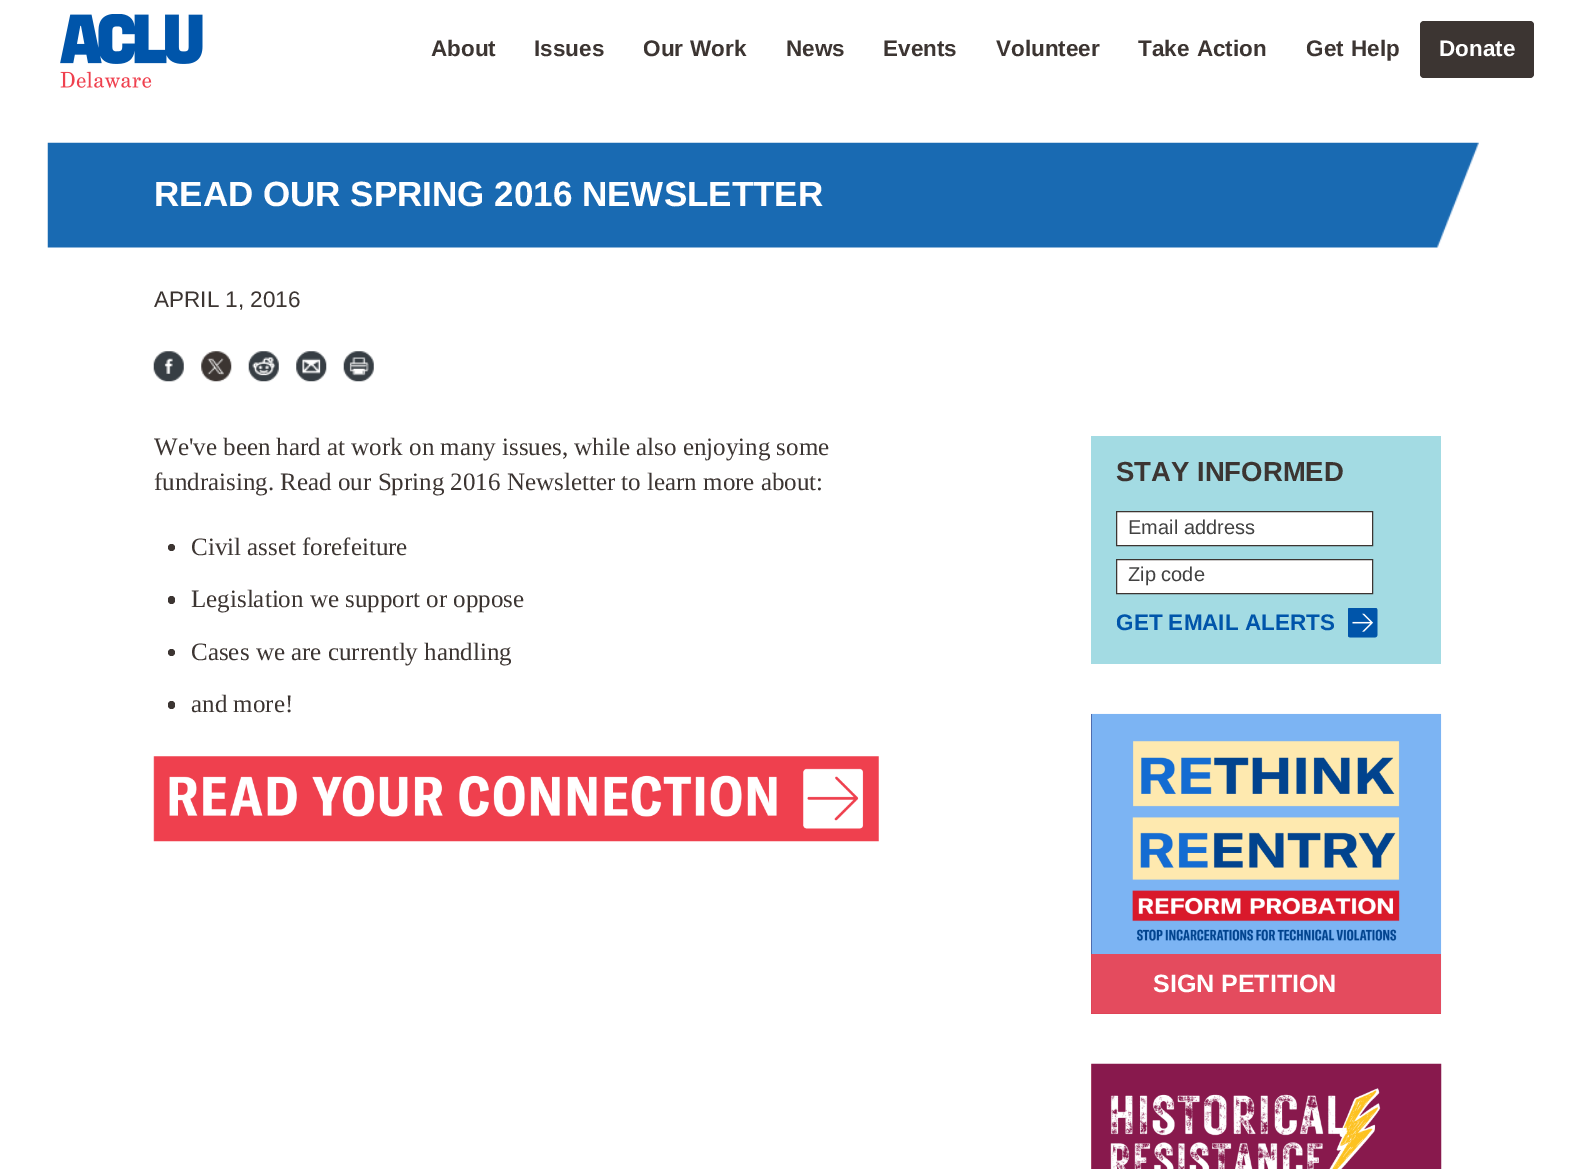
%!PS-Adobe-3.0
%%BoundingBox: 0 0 1595 1169
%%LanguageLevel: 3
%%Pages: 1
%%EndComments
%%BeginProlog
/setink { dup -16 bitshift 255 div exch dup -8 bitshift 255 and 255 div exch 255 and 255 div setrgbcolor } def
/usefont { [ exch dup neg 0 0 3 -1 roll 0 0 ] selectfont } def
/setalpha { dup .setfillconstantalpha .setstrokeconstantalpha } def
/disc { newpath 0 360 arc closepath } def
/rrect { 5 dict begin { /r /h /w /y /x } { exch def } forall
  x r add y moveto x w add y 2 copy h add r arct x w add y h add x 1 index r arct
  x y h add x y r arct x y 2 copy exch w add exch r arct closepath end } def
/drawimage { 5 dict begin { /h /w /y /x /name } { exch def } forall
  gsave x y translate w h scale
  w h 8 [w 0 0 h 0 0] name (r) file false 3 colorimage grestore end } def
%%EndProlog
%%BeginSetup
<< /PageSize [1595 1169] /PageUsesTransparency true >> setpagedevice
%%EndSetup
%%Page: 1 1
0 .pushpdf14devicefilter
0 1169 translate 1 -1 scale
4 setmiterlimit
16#FFFFFF setink
0 0 1595 1169 rectfill
(img1.raw) 60 14 143 74 drawimage
/LiberationSans-Bold 22.5 usefont
16#3C3532 setink
431 56 moveto (About) show
534 56 moveto (Issues) show
643 56 moveto 1 0 32 (Our Work) widthshow
[
    [(News) 786 56]
    [(Events) 883 56]
    [(Volunteer) 996 56]
] { aload pop moveto show } forall
1138 56 moveto 1 0 32 (Take Action) widthshow
1306 56 moveto 1 0 32 (Get Help) widthshow
1420 21 114 57 4 rrect fill
16#FFFFFF setink
1439 56 moveto (Donate) show
(img2.raw) 47 142 1432 106 drawimage
/LiberationSans-Bold 35 usefont
154 206 moveto (READ OUR SPRING 2016 NEWSLETTER) show
/LiberationSans-Regular 22.5 usefont
16#3C3532 setink
154 307 moveto (APRIL 1, 2016) show
(img3.raw) 153 351 31 31 drawimage
(img4.raw) 201 351 31 31 drawimage
(img5.raw) 248 351 31 31 drawimage
(img6.raw) 296 351 31 31 drawimage
(img7.raw) 343 351 31 31 drawimage
/LiberationSerif-Regular 25 usefont
154 455 moveto (We've been hard at work on many issues, while also enjoying some) show
154 490 moveto (fundraising. Read our Spring 2016 Newsletter to learn more about:) show
171.5 547.5 3.5 disc fill
191 555 moveto (Civil asset forefeiture) show
168 596 7 8 3.5 rrect fill
191 607 moveto (Legislation we support or oppose) show
171.5 652.5 3.5 disc fill
191 660 moveto (Cases we are currently handling) show
168 701 7 8 3.5 rrect fill
191 712 moveto (and more!) show
(img8.raw) 153 756 726 86 drawimage
16#A3DBE3 setink
1091 436 350 228 rectfill
/LiberationSans-Bold 27.5 usefont
16#3C3532 setink
1116 481 moveto (STAY INFORMED) show
16#FFFFFF setink
1116.5 511.5 moveto 1372.5 511.5 lineto 1372.5 545.5 lineto 1116.5 545.5 lineto closepath gsave fill grestore
16#3C3532 setink
stroke
/LiberationSans-Regular 20 usefont
16#414141 setink
1128 534 moveto (Email address) show
16#FFFFFF setink
1116.5 559.5 moveto 1372.5 559.5 lineto 1372.5 593.5 lineto 1116.5 593.5 lineto closepath gsave fill grestore
16#3C3532 setink
stroke
16#414141 setink
1128 581 moveto (Zip code) show
(img9.raw) 1348 608 30 30 drawimage
/LiberationSans-Bold 22.5 usefont
16#0055AA setink
1116 630 moveto (GET EMAIL ALERTS) show
16#130F54 setink
1091 714 350 300 rectfill
(img10.raw) 1091 713 351 301 drawimage
0.9 setalpha
16#EF404E setink
1091 954 350 60 rectfill
/LiberationSans-Bold 25 usefont
1 setalpha
16#FFFFFF setink
1153 992 moveto (SIGN PETITION) show
(img11.raw) 1091 1063 351 106 drawimage
.poppdf14devicefilter showpage
%%EOF
